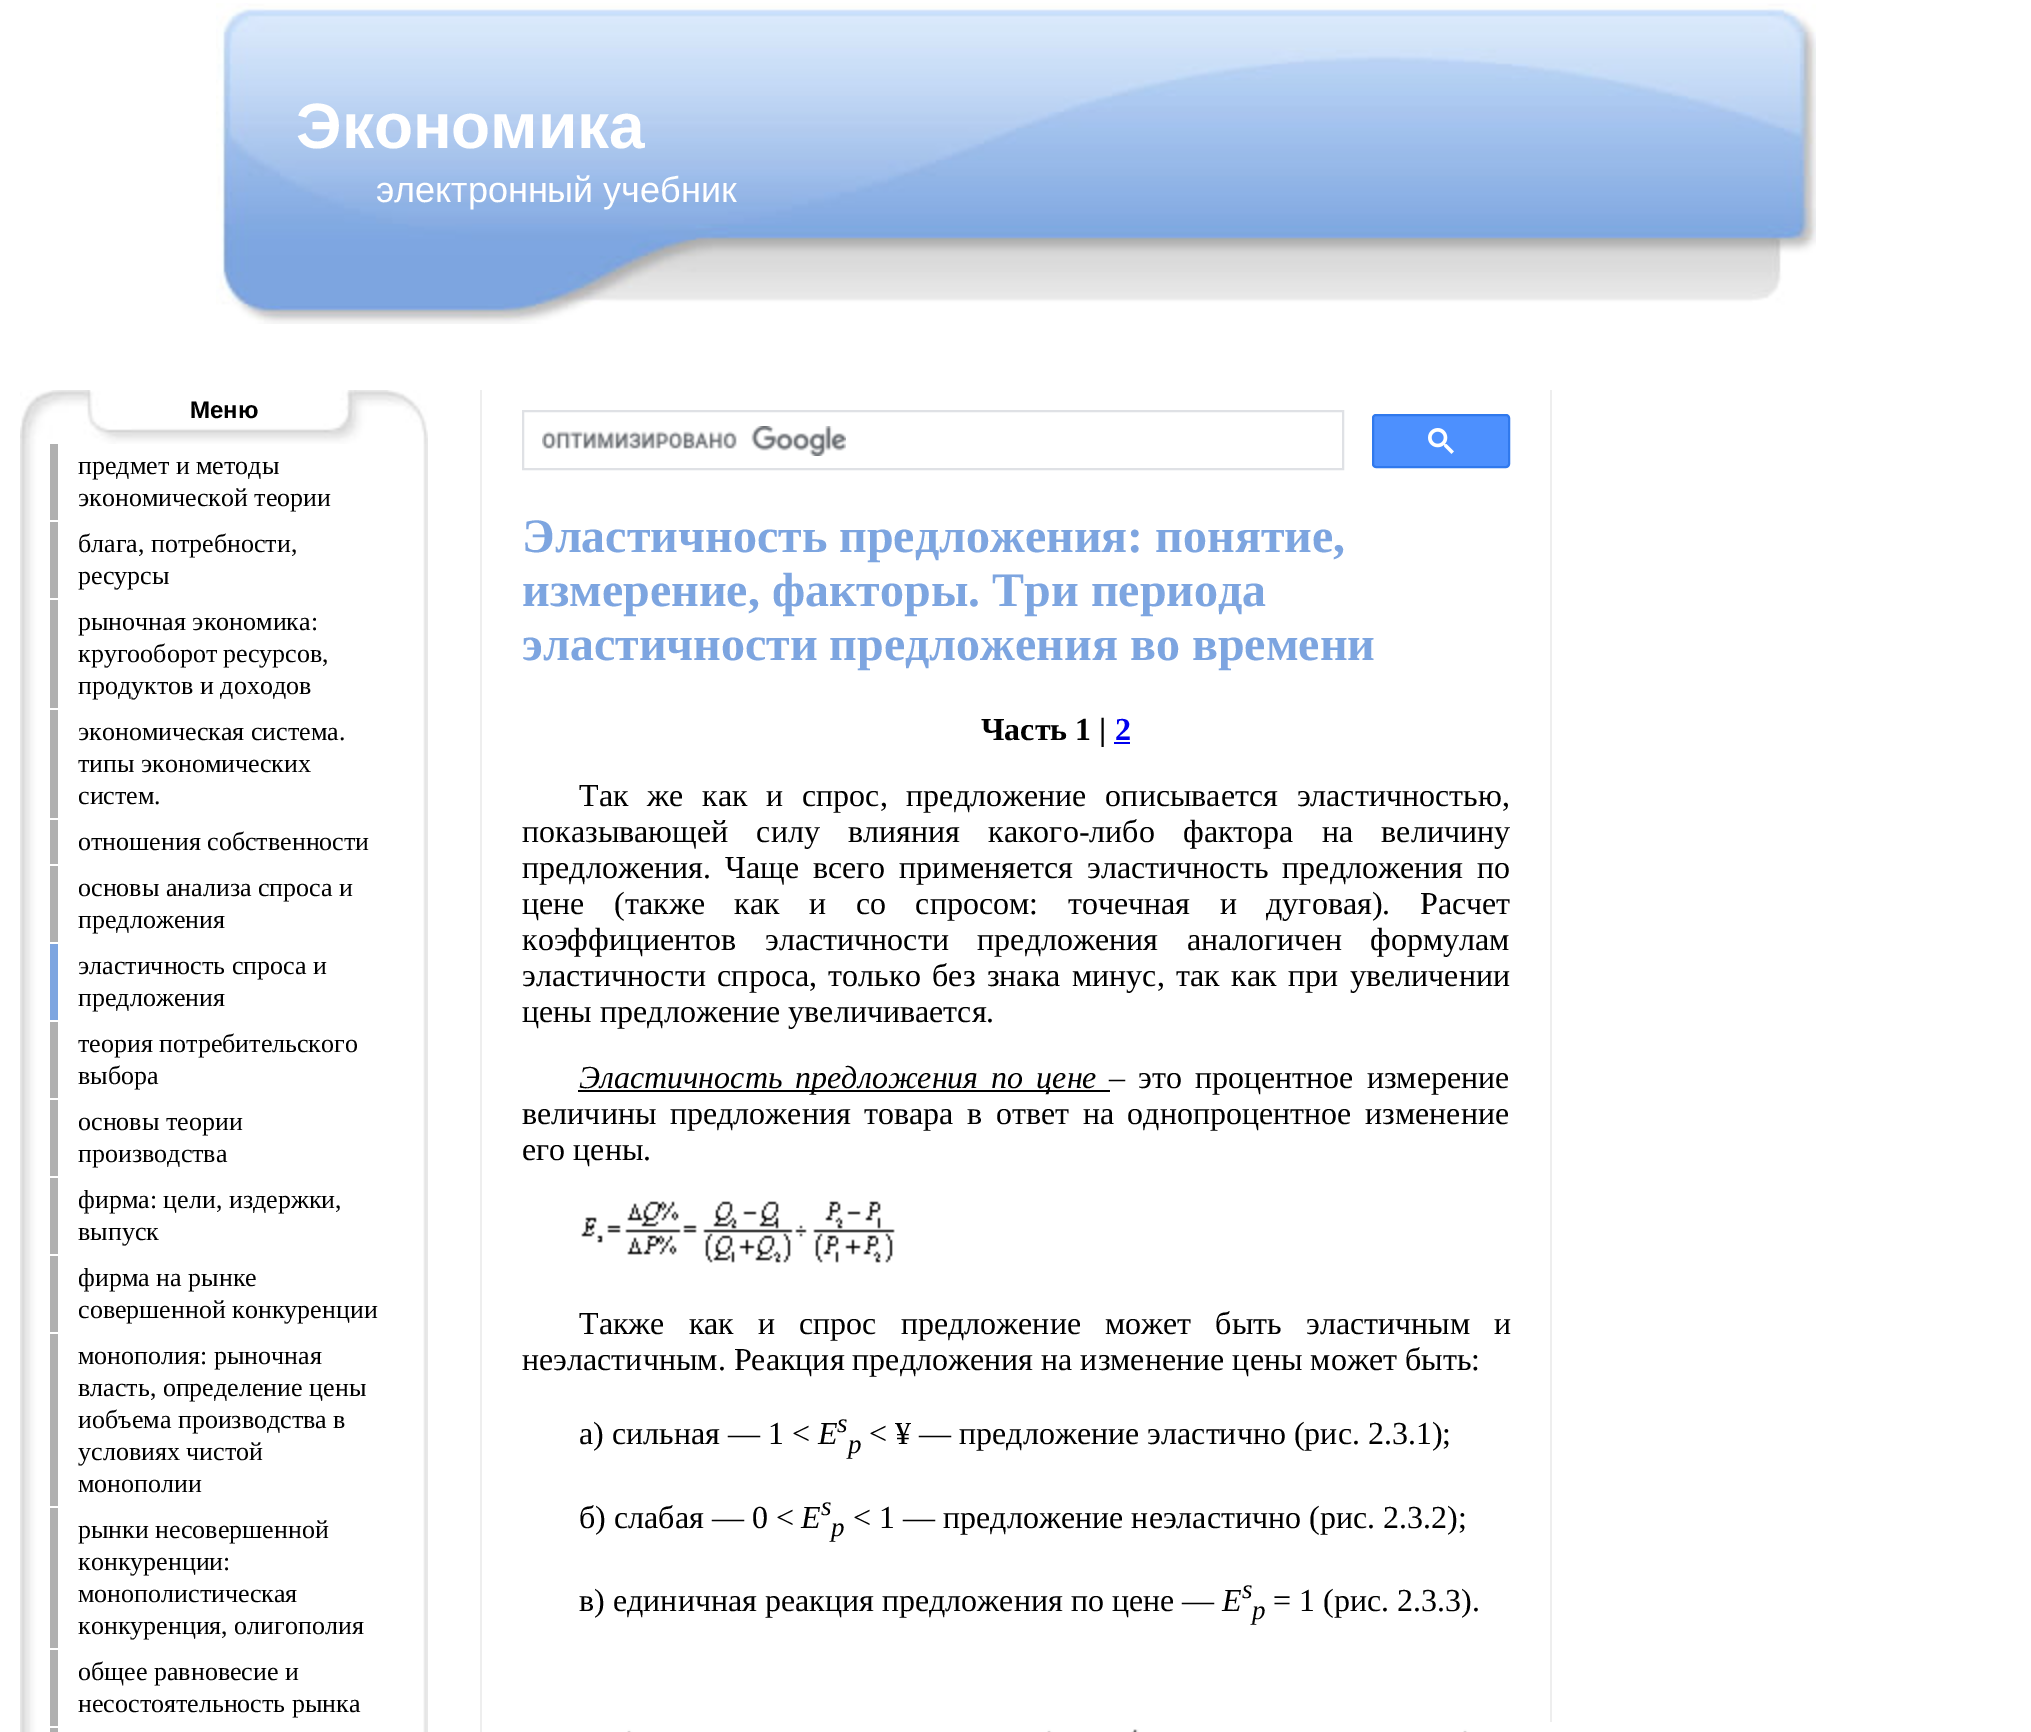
%!PS-Adobe-3.0
%%BoundingBox: 0 0 2031 1732
%%LanguageLevel: 3
%%Pages: 1
%%EndComments
%%BeginProlog
/setink { dup -16 bitshift 255 div exch dup -8 bitshift 255 and 255 div exch 255 and 255 div setrgbcolor } def
/usefont { [ exch dup neg 0 0 3 -1 roll 0 0 ] selectfont } def
/rrect { 5 dict begin { /r /h /w /y /x } { exch def } forall
  x r add y moveto x w add y 2 copy h add r arct x w add y h add x 1 index r arct
  x y h add x y r arct x y 2 copy exch w add exch r arct closepath end } def
/drawimage { 5 dict begin { /h /w /y /x /name } { exch def } forall
  gsave x y translate w h scale
  w h 8 [w 0 0 h 0 0] name (r) file false 3 colorimage grestore end } def
%%EndProlog
%%BeginSetup
<< /PageSize [2031 1732] >> setpagedevice
%%EndSetup
%%Page: 1 1
0 1732 translate 1 -1 scale
4 setmiterlimit
16#FFFFFF setink
0 0 2031 1732 rectfill
(img1.raw) 216 3 1600 321 drawimage
/LiberationSans-Bold 64 usefont
296 148 moveto (Экономика) show
/LiberationSans-Regular 36 usefont
376 202 moveto (электронный учебник) show
(img2.raw) 20 390 408 54 drawimage
/LiberationSans-Bold 24 usefont
16#000000 setink
190 418 moveto (Меню) show
(img3.raw) 20 444 408 1288 drawimage
16#B0B0B0 setink
50 444 8 76 rectfill
/LiberationSerif-Regular 26 usefont
16#000000 setink
78 474 moveto (предмет и методы) show
78 506 moveto (экономической теории) show
16#B0B0B0 setink
50 522 8 76 rectfill
16#000000 setink
78 552 moveto (блага, потребности,) show
78 584 moveto (ресурсы) show
16#B0B0B0 setink
50 600 8 108 rectfill
16#000000 setink
[
    [(рыночная экономика:) 78 630]
    [(кругооборот ресурсов,) 78 662]
    [(продуктов и доходов) 78 694]
] { aload pop moveto show } forall
16#B0B0B0 setink
50 710 8 108 rectfill
16#000000 setink
[
    [(экономическая система.) 78 740]
    [(типы экономических) 78 772]
    [(систем.) 78 804]
] { aload pop moveto show } forall
16#B0B0B0 setink
50 820 8 44 rectfill
16#000000 setink
78 850 moveto (отношения собственности) show
16#B0B0B0 setink
50 866 8 76 rectfill
16#000000 setink
78 896 moveto (основы анализа спроса и) show
78 928 moveto (предложения) show
16#7DA5E0 setink
50 944 8 76 rectfill
16#000000 setink
78 974 moveto (эластичность спроса и) show
78 1006 moveto (предложения) show
16#B0B0B0 setink
50 1022 8 76 rectfill
16#000000 setink
78 1052 moveto (теория потребительского) show
78 1084 moveto (выбора) show
16#B0B0B0 setink
50 1100 8 76 rectfill
16#000000 setink
78 1130 moveto (основы теории) show
78 1162 moveto (производства) show
16#B0B0B0 setink
50 1178 8 76 rectfill
16#000000 setink
78 1208 moveto (фирма: цели, издержки,) show
78 1240 moveto (выпуск) show
16#B0B0B0 setink
50 1256 8 76 rectfill
16#000000 setink
78 1286 moveto (фирма на рынке) show
78 1318 moveto (совершенной конкуренции) show
16#B0B0B0 setink
50 1334 8 172 rectfill
16#000000 setink
[
    [(монополия: рыночная) 78 1364]
    [(власть, определение цены) 78 1396]
    [(иобъема производства в) 78 1428]
    [(условиях чистой) 78 1460]
    [(монополии) 78 1492]
] { aload pop moveto show } forall
16#B0B0B0 setink
50 1508 8 140 rectfill
16#000000 setink
[
    [(рынки несовершенной) 78 1538]
    [(конкуренции:) 78 1570]
    [(монополистическая) 78 1602]
    [(конкуренция, олигополия) 78 1634]
] { aload pop moveto show } forall
16#B0B0B0 setink
50 1650 8 76 rectfill
16#000000 setink
78 1680 moveto (общее равновесие и) show
78 1712 moveto (несостоятельность рынка) show
[
    [50 1728 8 4 16#B0B0B0]
    [1550 390 2 1332 16#EEEEEE]
    [480 390 2 1342 16#EEEEEE]
] { aload pop setink rectfill } forall
16#DFE1E5 setink
2 setlinewidth
523 411 820 58 rectstroke
(img4.raw) 542 426 304 30 drawimage
16#4D90FE setink
1373 415 136 52 3 rrect gsave fill grestore
16#3079ED setink
stroke
(img5.raw) 1428 428 26 26 drawimage
/LiberationSerif-Bold 48 usefont
16#7DA5E0 setink
[
    [(Эластичность предложения: понятие,) 522 552]
    [(измерение, факторы. Три периода) 522 606]
    [(эластичности предложения во времени) 522 660]
] { aload pop moveto show } forall
/LiberationSerif-Bold 32 usefont
16#000000 setink
981 740 moveto (Часть 1 |) show
16#0000EE setink
1115 740 moveto (2) show
1114 742 16 2 rectfill
/LiberationSerif-Regular 32 usefont
16#000000 setink
579 806 moveto 10.75 0 32 (Так же как и спрос, предложение описывается эластичностью,) widthshow
522 842 moveto 20.25 0 32 (показывающей силу влияния какого-либо фактора на величину) widthshow
522 878 moveto 6 0 32 (предложения. Чаще всего применяется эластичность предложения по) widthshow
522 914 moveto 21.5 0 32 (цене \(также как и со спросом: точечная и дуговая\). Расчет) widthshow
522 950 moveto 20.5 0 32 (коэффициентов эластичности предложения аналогичен формулам) widthshow
522 986 moveto 3.5 0 32 (эластичности спроса, только без знака минус, так как при увеличении) widthshow
522 1022 moveto (цены предложение увеличивается.) show
578 1090 532 2 rectfill
/LiberationSerif-Italic 32 usefont
579 1088 moveto 5 0 32 (Эластичность предложения по цене) widthshow
/LiberationSerif-Regular 32 usefont
1109 1088 moveto 5 0 32 (– это процентное измерение) widthshow
522 1124 moveto 5.5 0 32 (величины предложения товара в ответ на однопроцентное изменение) widthshow
522 1160 moveto (его цены.) show
(img6.raw) 581 1201 314 62 drawimage
579 1334 moveto 16 0 32 (Также как и спрос предложение может быть эластичным и) widthshow
522 1370 moveto (неэластичным. Реакция предложения на изменение цены может быть:) show
579 1444 moveto (а\) сильная — 1 <) show
/LiberationSerif-Italic 32 usefont
818 1444 moveto (E) show
/LiberationSerif-Italic 27 usefont
837 1432 moveto (s) show
/LiberationSerif-Regular 32 usefont
869 1444 moveto (< ¥ — предложение эластично \(рис. 2.3.1\);) show
/LiberationSerif-Italic 27 usefont
848 1453 moveto (p) show
/LiberationSerif-Regular 32 usefont
579 1528 moveto (б\) слабая — 0 <) show
/LiberationSerif-Italic 32 usefont
801 1528 moveto (E) show
/LiberationSerif-Italic 27 usefont
821 1515 moveto (s) show
/LiberationSerif-Regular 32 usefont
853 1528 moveto (< 1 — предложение неэластично \(рис. 2.3.2\);) show
/LiberationSerif-Italic 27 usefont
831 1536 moveto (p) show
/LiberationSerif-Regular 32 usefont
579 1611 moveto (в\) единичная реакция предложения по цене —) show
/LiberationSerif-Italic 32 usefont
1222 1611 moveto (E) show
/LiberationSerif-Italic 27 usefont
1242 1598 moveto (s) show
/LiberationSerif-Regular 32 usefont
1273 1611 moveto (= 1 \(рис. 2.3.3\).) show
/LiberationSerif-Italic 27 usefont
1252 1619 moveto (p) show
(img7.raw) 627 1722 925 10 drawimage
showpage
%%EOF
